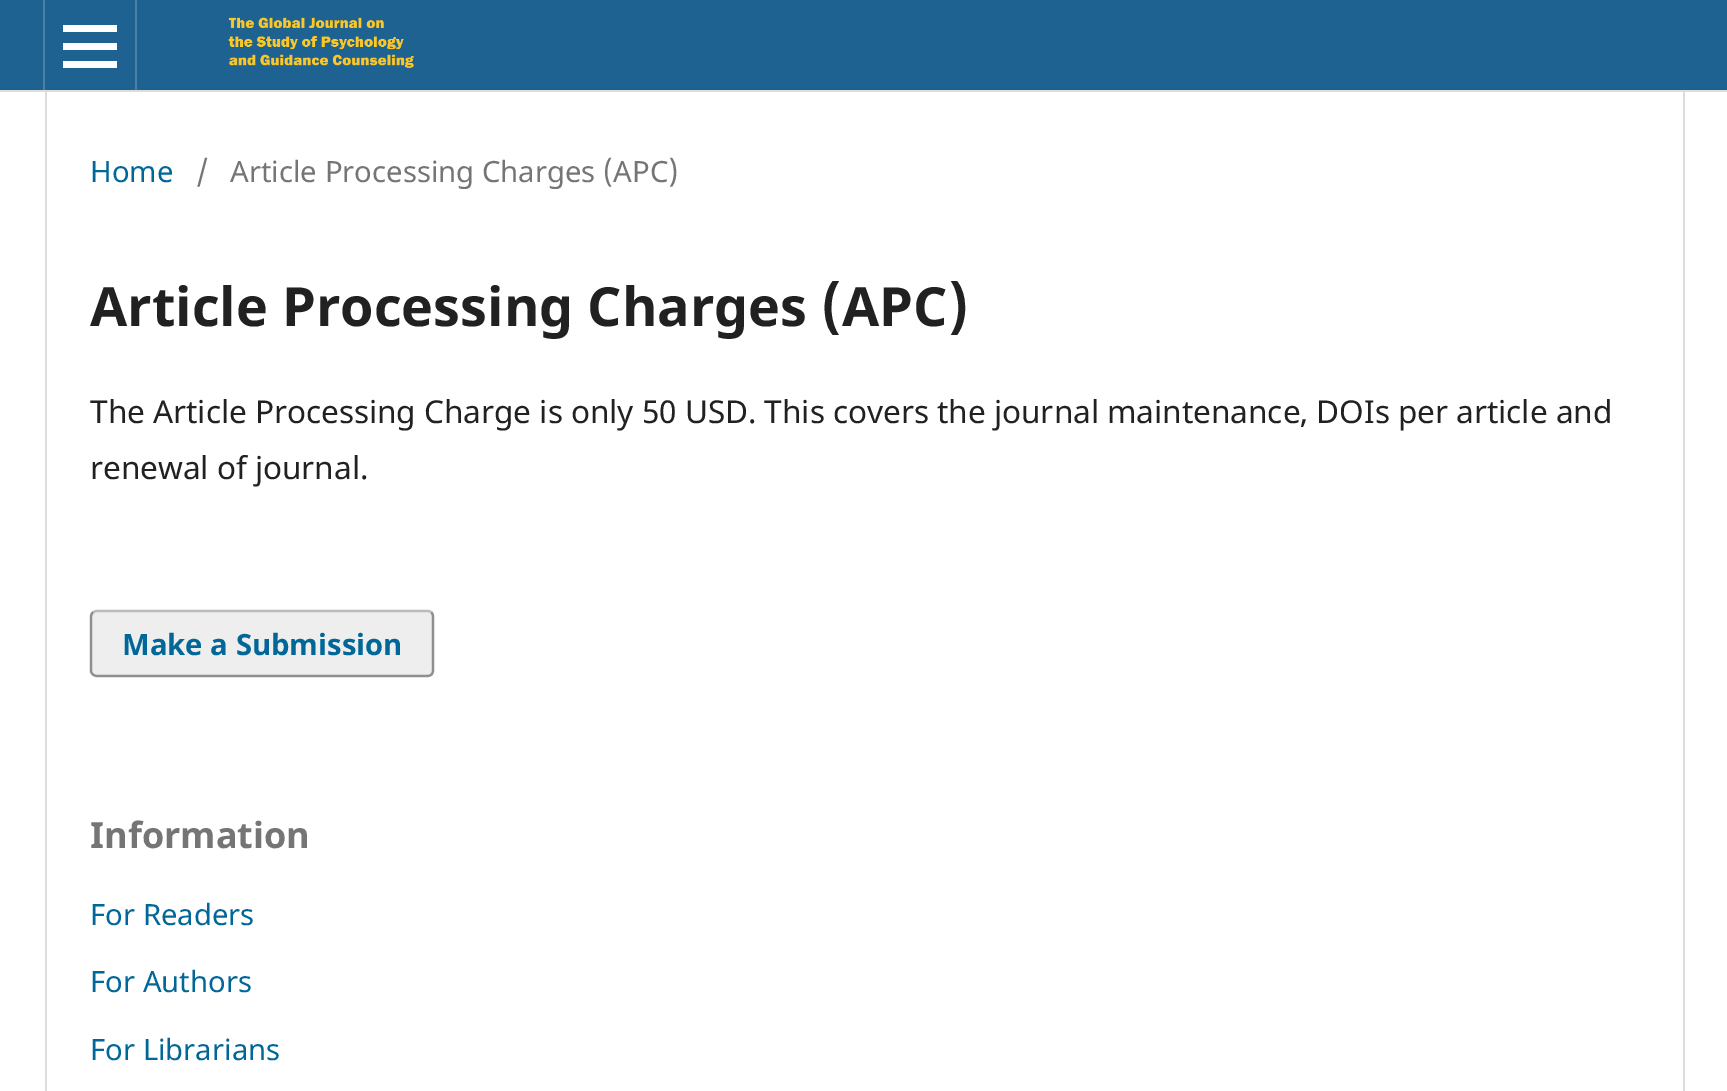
%!PS-Adobe-3.0
%%BoundingBox: 0 0 1727 1091
%%LanguageLevel: 3
%%Pages: 1
%%EndComments
%%BeginProlog
/setink { dup -16 bitshift 255 div exch dup -8 bitshift 255 and 255 div exch 255 and 255 div setrgbcolor } def
/usefont { [ exch dup neg 0 0 3 -1 roll 0 0 ] selectfont } def
/setalpha { dup .setfillconstantalpha .setstrokeconstantalpha } def
/rrect { 5 dict begin { /r /h /w /y /x } { exch def } forall
  x r add y moveto x w add y 2 copy h add r arct x w add y h add x 1 index r arct
  x y h add x y r arct x y 2 copy exch w add exch r arct closepath end } def
/drawimage { 5 dict begin { /h /w /y /x /name } { exch def } forall
  gsave x y translate w h scale
  w h 8 [w 0 0 h 0 0] name (r) file false 3 colorimage grestore end } def
%%EndProlog
%%BeginSetup
<< /PageSize [1727 1091] /PageUsesTransparency true >> setpagedevice
%%EndSetup
%%Page: 1 1
0 .pushpdf14devicefilter
0 1091 translate 1 -1 scale
4 setmiterlimit
16#FFFFFF setink
0 0 1727 1091 rectfill
[
    [0 0 1727 90 16#1E6292]
    [0 90 1727 2 16#DDDDDD]
    [43 0 2 90 16#4B81A8]
    [135 0 2 90 16#4B81A8]
    [63 61 54 7 16#FFFFFF]
    [63 25 54 7 16#FFFFFF]
    [63 43 54 7 16#FFFFFF]
] { aload pop setink rectfill } forall
(img1.raw) 228 17 186 51 drawimage
16#DDDDDD setink
45 92 2 999 rectfill
/NotoSans-Regular 29.25 usefont
16#006798 setink
90 182 moveto (Home) show
16#757575 setink
196 182 moveto (/) show
230 182 moveto (Article Processing Charges \(APC\)) show
16#DDDDDD setink
1683 92 2 999 rectfill
/NotoSans-Bold 54 usefont
16#212121 setink
90 326 moveto (Article Processing Charges \(APC\)) show
/NotoSans-Regular 31.5 usefont
90 423 moveto (The Article Processing Charge is only 50 USD. This covers the journal maintenance, DOIs per article and) show
90 479 moveto (renewal of journal.) show
16#EEEEEE setink
90 610 344 67 7 rrect fill
16#BBBBBB setink
2.2 setlinewidth
93 612.5 moveto 94 611.5 95.5 611 97 611 curveto 427.5 611 lineto 429 611 430.5 611.5 431.5 612.5 curveto stroke
0.4 setalpha
16#000000 setink
431.5 612.5 moveto 432.5 613.5 433 615 433 616.5 curveto 433 670.5 lineto 433 672 432.5 673.5 431.5 674.5 curveto 430.5 675.5 429 676 427.5 676 curveto 97 676 lineto 95.5 676 94 675.5 93 674.5 curveto 91.5 673.5 91 672 91 670.5 curveto 91 616.5 lineto 91 615 91.5 613.5 93 612.5 curveto stroke
/NotoSans-Bold 29.25 usefont
1 setalpha
16#006798 setink
122 655 moveto (Make a Submission) show
/NotoSans-Bold 36 usefont
16#757575 setink
90 848 moveto (Information) show
/NotoSans-Regular 29.25 usefont
16#006798 setink
[
    [(For Readers) 90 925]
    [(For Authors) 90 992]
    [(For Librarians) 90 1060]
] { aload pop moveto show } forall
.poppdf14devicefilter showpage
%%EOF
